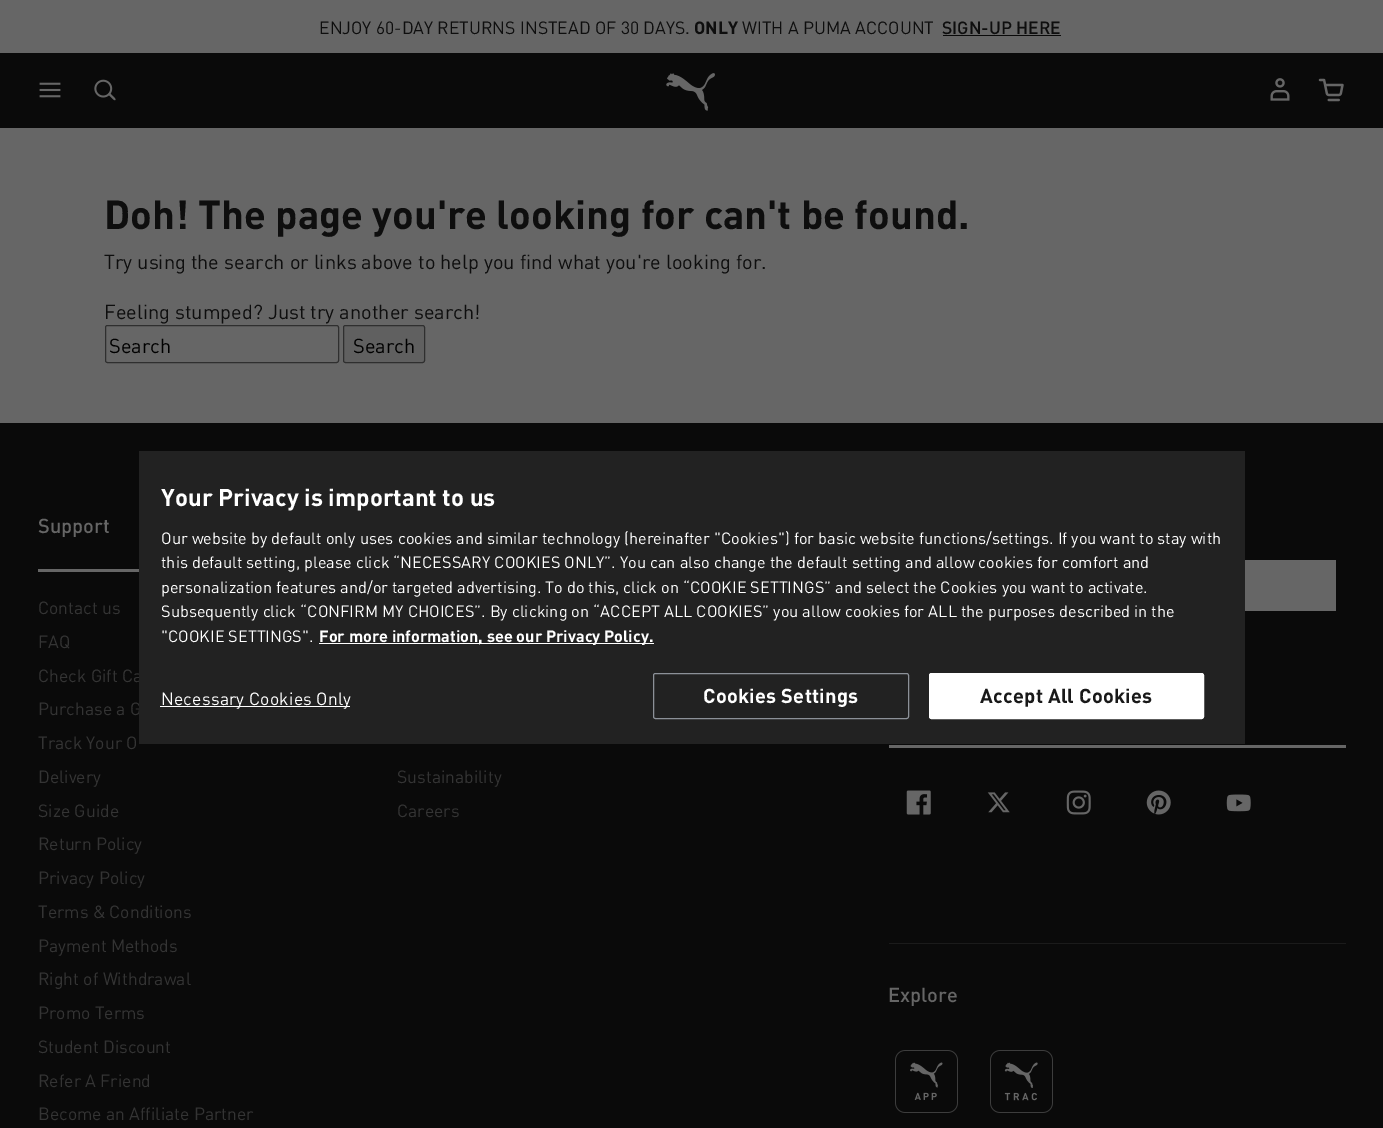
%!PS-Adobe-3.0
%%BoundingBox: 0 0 1383 1128
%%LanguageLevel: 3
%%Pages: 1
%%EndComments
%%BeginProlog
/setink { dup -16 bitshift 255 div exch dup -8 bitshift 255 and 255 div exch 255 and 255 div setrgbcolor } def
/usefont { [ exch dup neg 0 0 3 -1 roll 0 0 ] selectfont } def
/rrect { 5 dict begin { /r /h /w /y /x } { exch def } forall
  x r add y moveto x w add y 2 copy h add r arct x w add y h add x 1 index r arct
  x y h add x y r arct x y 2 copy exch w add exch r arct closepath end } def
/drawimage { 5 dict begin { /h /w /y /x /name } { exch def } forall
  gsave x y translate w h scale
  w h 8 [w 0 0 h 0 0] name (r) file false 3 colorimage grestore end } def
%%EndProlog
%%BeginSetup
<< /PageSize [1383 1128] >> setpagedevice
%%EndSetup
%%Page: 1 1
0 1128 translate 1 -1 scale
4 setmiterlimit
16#666666 setink
0 0 1383 1128 rectfill
/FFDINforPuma-Regular 17.5 usefont
16#0E0E0E setink
319 34 moveto (ENJOY 60-DAY RETURNS INSTEAD OF 30 DAYS.) show
/FFDINforPuma-Bold 17.5 usefont
694 34 moveto (ONLY) show
/FFDINforPuma-Regular 17.5 usefont
742 34 moveto (WITH A PUMA ACCOUNT) show
/FFDINforPuma-Medium 17.5 usefont
942 34 moveto (SIGN-UP HERE) show
16#0A0A0A setink
943 35 118 1 rectfill
0 53 1383 75 rectfill
(img1.raw) 39 82 22 16 drawimage
(img2.raw) 94 79 22 22 drawimage
(img3.raw) 666 73 49 38 drawimage
(img4.raw) 1270 78 20 23 drawimage
(img5.raw) 1318 78 26 24 drawimage
/FFDINforPuma-Bold 40 usefont
16#0E0E0E setink
104 229 moveto (Doh! The page you're looking for can't be found.) show
/FFDINforPuma-Regular 20 usefont
104 269 moveto (Try using the search or links above to help you find what you're looking for.) show
104 319 moveto (Feeling stumped? Just try another search!) show
16#2F2F2F setink
105.5 325.5 233 37 2 rrect stroke
16#000000 setink
109 353 moveto (Search) show
16#606060 setink
343.5 325.5 81 37 2 rrect gsave fill grestore
16#2F2F2F setink
stroke
16#000000 setink
353 353 moveto (Search) show
16#0A0A0A setink
0 423 1383 705 rectfill
/FFDINforPuma-Regular 17.5 usefont
16#343434 setink
38 682 moveto (Check Gift Ca) show
38 715 moveto (Purchase a G) show
16#222222 setink
139 451 1106 293 rectfill
/FFDINforPuma-Bold 24 usefont
16#FFFFFF setink
161 506 moveto (Your Privacy is important to us) show
/FFDINforPuma-Regular 16.25 usefont
[
    [(Our website by default only uses cookies and similar technology \(hereinafter "Cookies"\) for basic website functions/settings. If you want to stay with) 161 544]
    [(this default setting, please click “NECESSARY COOKIES ONLY”. You can also change the default setting and allow cookies for comfort and) 161 568]
    [(personalization features and/or targeted advertising. To do this, click on “COOKIE SETTINGS” and select the Cookies you want to activate.) 161 593]
    [(Subsequently click “CONFIRM MY CHOICES”. By clicking on “ACCEPT ALL COOKIES” you allow cookies for ALL the purposes described in the) 161 617]
    [("COOKIE SETTINGS".) 161 642]
] { aload pop moveto show } forall
319 643 335 1 rectfill
/FFDINforPuma-Bold 16.25 usefont
319 642 moveto (For more information, see our Privacy Policy.) show
160 706 190 1 rectfill
/FFDINforPuma-Regular 17.5 usefont
161 705 moveto 0.2 0 (Necessary Cookies Only) ashow
16#8C9198 setink
653.5 673.5 255 45 2 rrect stroke
/FFDINforPuma-Bold 20 usefont
16#FFFFFF setink
703 703 moveto 0.25 0 (Cookies Settings) ashow
929.5 673.5 274 45 2 rrect gsave fill grestore
stroke
16#191919 setink
980 703 moveto 0.25 0 (Accept All Cookies) ashow
16#666666 setink
38 569 101 3 rectfill
/FFDINforPuma-Medium 20 usefont
38 533 moveto (Support) show
/FFDINforPuma-Regular 17.5 usefont
16#343434 setink
[
    [(Contact us) 38 614]
    [(FAQ) 38 648]
    [(Track Your O) 38 749]
    [(Delivery) 38 783]
    [(Size Guide) 38 817]
    [(Return Policy) 38 850]
    [(Privacy Policy) 38 884]
    [(Terms & Conditions) 38 918]
    [(Payment Methods) 38 952]
    [(Right of Withdrawal) 38 985]
    [(Promo Terms) 38 1019]
    [(Student Discount) 38 1053]
    [(Refer A Friend) 38 1087]
    [(Become an Affiliate Partner) 38 1120]
    [(Sustainability) 397 783]
    [(Careers) 397 817]
] { aload pop moveto show } forall
16#666666 setink
1245 560 91 51 rectfill
889 745 457 3 rectfill
(img6.raw) 906 790 25 25 drawimage
(img7.raw) 987 792 23 21 drawimage
(img8.raw) 1066 790 25 25 drawimage
(img9.raw) 1146 790 25 25 drawimage
(img10.raw) 1226 794 25 18 drawimage
16#1B1B1B setink
889 943 457 1 rectfill
/FFDINforPuma-Medium 20 usefont
16#666666 setink
888 1002 moveto (Explore) show
(img11.raw) 895 1050 63 63 drawimage
(img12.raw) 990 1050 63 63 drawimage
showpage
%%EOF
